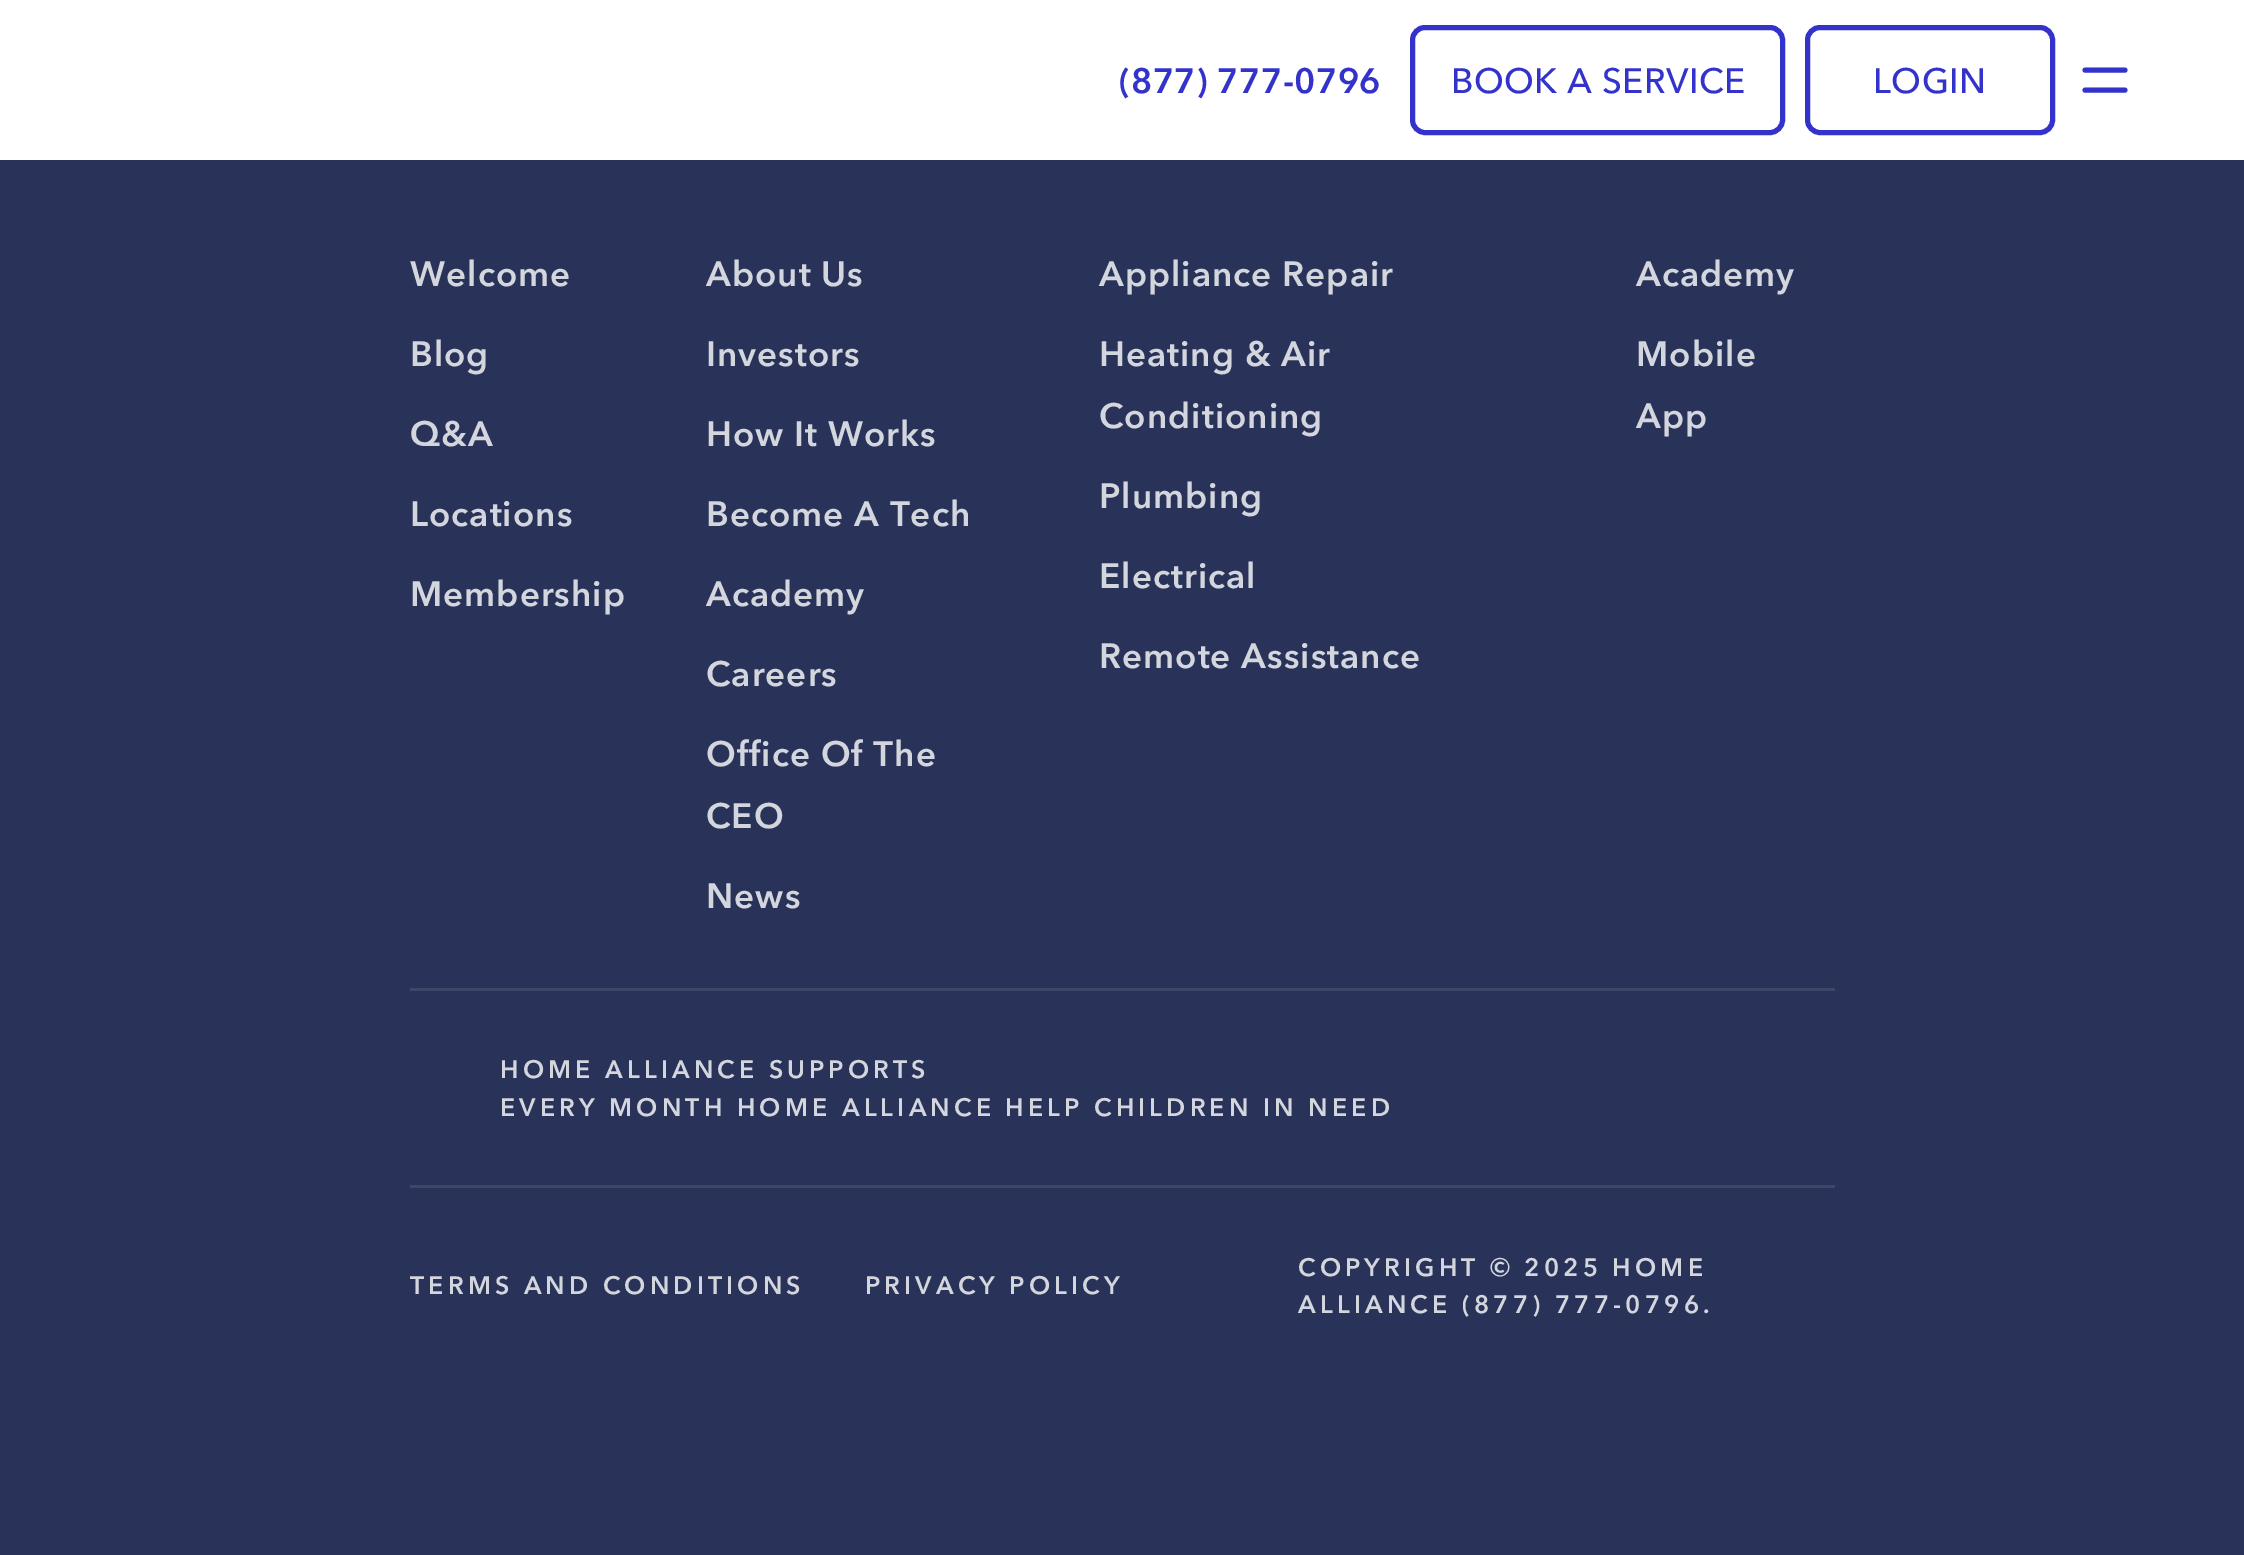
%!PS-Adobe-3.0
%%BoundingBox: 0 0 2244 1555
%%LanguageLevel: 3
%%Pages: 1
%%EndComments
%%BeginProlog
/setink { dup -16 bitshift 255 div exch dup -8 bitshift 255 and 255 div exch 255 and 255 div setrgbcolor } def
/usefont { [ exch dup neg 0 0 3 -1 roll 0 0 ] selectfont } def
/rrect { 5 dict begin { /r /h /w /y /x } { exch def } forall
  x r add y moveto x w add y 2 copy h add r arct x w add y h add x 1 index r arct
  x y h add x y r arct x y 2 copy exch w add exch r arct closepath end } def
%%EndProlog
%%BeginSetup
<< /PageSize [2244 1555] >> setpagedevice
%%EndSetup
%%Page: 1 1
0 1555 translate 1 -1 scale
4 setmiterlimit
16#293359 setink
0 0 2244 1555 rectfill
16#FFFFFF setink
0 0 2244 160 rectfill
/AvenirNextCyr-Bold 35 usefont
16#3333CC setink
1119 93 moveto 0.4 0 (\(877\) 777-0796) ashow
5 setlinewidth
1412.5 27.5 370 105 12.5 rrect stroke
/AvenirNextCyr-Medium 35 usefont
1451 93 moveto 0.5 0 (BOOK A SERVICE) ashow
1807.5 27.5 245 105 12.5 rrect stroke
1873 93 moveto 0.5 0 (LOGIN) ashow
1 setlinecap
1 setlinejoin
2085 70 moveto 2125 70 lineto 2085 90 moveto 2125 90 lineto stroke
/AvenirNextCyr-Bold 35 usefont
16#D4D6DE setink
410 286 moveto 1 0 (Welcome) ashow
410 366 moveto 1 0 (Blog) ashow
410 446 moveto 1 0 (Q&A) ashow
410 526 moveto 1 0 (Locations) ashow
410 606 moveto 1 0 (Membership) ashow
706 286 moveto 1 0 (About Us) ashow
706 366 moveto 1 0 (Investors) ashow
706 446 moveto 1 0 (How It Works) ashow
706 526 moveto 1 0 (Become A Tech) ashow
706 606 moveto 1 0 (Academy) ashow
706 686 moveto 1 0 (Careers) ashow
706 766 moveto 1 0 (Office Of The) ashow
706 828 moveto 1 0 (CEO) ashow
706 908 moveto 1 0 (News) ashow
1099 286 moveto 1 0 (Appliance Repair) ashow
1099 366 moveto 1 0 (Heating & Air) ashow
1099 428 moveto 1 0 (Conditioning) ashow
1099 508 moveto 1 0 (Plumbing) ashow
1099 588 moveto 1 0 (Electrical) ashow
1099 668 moveto 1 0 (Remote Assistance) ashow
1636 286 moveto 1 0 (Academy) ashow
1636 366 moveto 1 0 (Mobile) ashow
1636 428 moveto 1 0 (App) ashow
16#3E476A setink
410 988 1425 3 rectfill
/AvenirNextCyr-Bold 25 usefont
16#D4D6DE setink
500 1078 moveto 4.15 0 (HOME ALLIANCE SUPPORTS) ashow
500 1116 moveto 4.15 0 (EVERY MONTH HOME ALLIANCE HELP CHILDREN IN NEED) ashow
16#3E476A setink
410 1185 1425 3 rectfill
16#D4D6DE setink
410 1294 moveto 4.15 0 (TERMS AND CONDITIONS) ashow
865 1294 moveto 4.15 0 (PRIVACY POLICY) ashow
1298 1276 moveto 4.15 0 (COPYRIGHT © 2025 HOME) ashow
1298 1313 moveto 4.15 0 (ALLIANCE \(877\) 777-0796.) ashow
showpage
%%EOF
